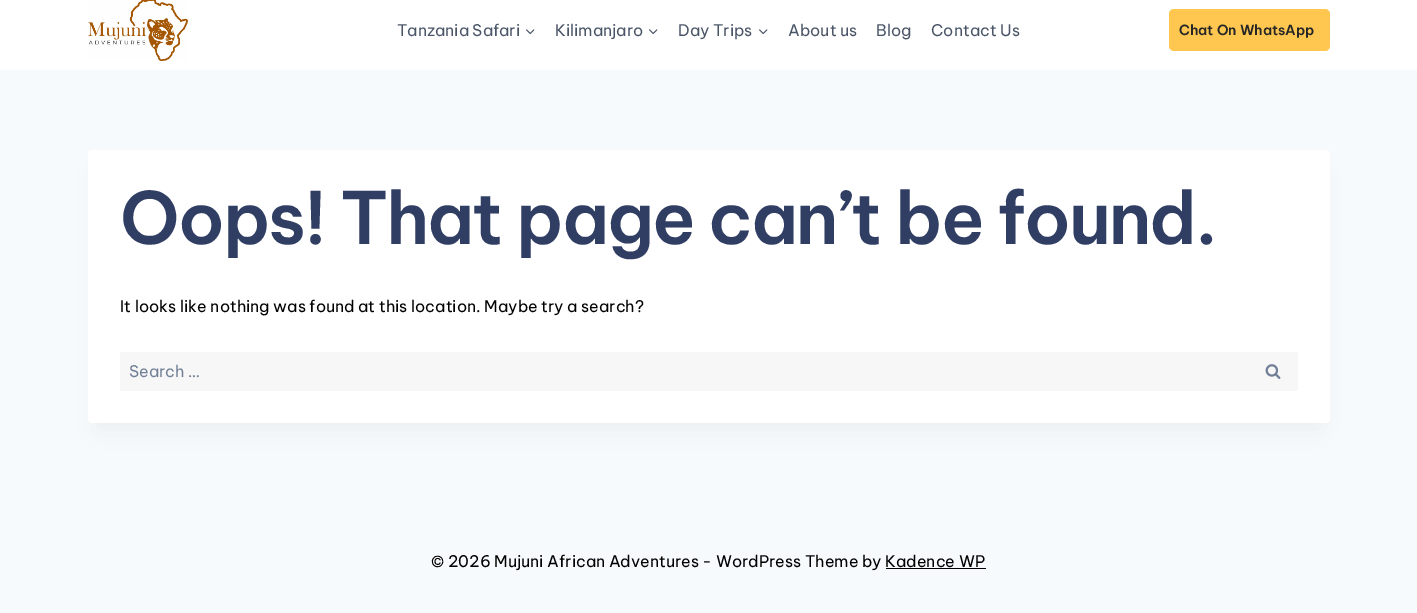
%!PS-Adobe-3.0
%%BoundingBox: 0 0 1417 613
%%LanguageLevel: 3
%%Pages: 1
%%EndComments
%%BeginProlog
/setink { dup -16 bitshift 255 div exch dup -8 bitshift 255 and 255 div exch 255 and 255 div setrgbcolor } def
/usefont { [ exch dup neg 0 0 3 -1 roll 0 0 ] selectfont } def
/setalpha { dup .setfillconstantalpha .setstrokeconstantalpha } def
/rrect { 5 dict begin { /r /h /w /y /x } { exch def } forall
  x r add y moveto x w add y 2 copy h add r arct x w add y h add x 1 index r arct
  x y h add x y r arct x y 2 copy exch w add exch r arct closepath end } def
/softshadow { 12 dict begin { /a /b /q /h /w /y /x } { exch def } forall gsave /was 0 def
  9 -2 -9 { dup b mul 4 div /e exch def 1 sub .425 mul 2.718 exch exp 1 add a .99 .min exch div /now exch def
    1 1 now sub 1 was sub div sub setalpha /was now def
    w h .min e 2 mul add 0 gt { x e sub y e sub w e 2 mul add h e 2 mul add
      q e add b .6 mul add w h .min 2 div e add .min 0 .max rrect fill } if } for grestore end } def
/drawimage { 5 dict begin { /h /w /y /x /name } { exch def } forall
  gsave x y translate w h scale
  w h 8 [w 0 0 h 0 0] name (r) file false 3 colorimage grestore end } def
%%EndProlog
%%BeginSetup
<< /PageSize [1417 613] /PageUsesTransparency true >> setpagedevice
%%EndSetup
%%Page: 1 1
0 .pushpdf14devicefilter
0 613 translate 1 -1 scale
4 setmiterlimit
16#F7FAFC setink
0 0 1417 613 rectfill
16#FFFFFF setink
0 0 1417 70 rectfill
(img1.raw) 88 0 100 61 drawimage
/BeVietnamPro-Regular 16 usefont
16#4A5568 setink
397 36 moveto (Tanzania Safari) show
(img2.raw) 526 29 9 6 drawimage
555 36 moveto (Kilimanjaro) show
(img2.raw) 649 29 9 6 drawimage
678 36 moveto (Day Trips) show
(img2.raw) 759 29 9 6 drawimage
[
    [(About us) 788 36]
    [(Blog) 876 36]
    [(Contact Us) 931 36]
] { aload pop moveto show } forall
16#FFC750 setink
1169 9 161 42 5 rrect fill
/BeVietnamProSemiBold-SemiBold 14 usefont
16#262626 setink
1179 35 moveto (Chat On WhatsApp) show
16#000000 setink
98 175 1222 253 0 12.5 0.05 softshadow
16#FFFFFF setink
88 150 1242 273 4 rrect fill
/BeVietnamProSemiBold-SemiBold 72 usefont
16#313E64 setink
120 244 moveto -2 0 (Oops! That page can’t be found.) ashow
/BeVietnamPro-Regular 16 usefont
16#000000 setink
120 312 moveto (It looks like nothing was found at this location. Maybe try a search?) show
16#F7F7F7 setink
120 352 1178 39 rectfill
16#718096 setink
129 377 moveto (Search …) show
(img3.raw) 1265 364 16 15 drawimage
16#000000 setink
431 567 moveto (© 2026 Mujuni African Adventures - WordPress Theme by Kadence WP) show
886 568 100 1 rectfill
.poppdf14devicefilter showpage
%%EOF
